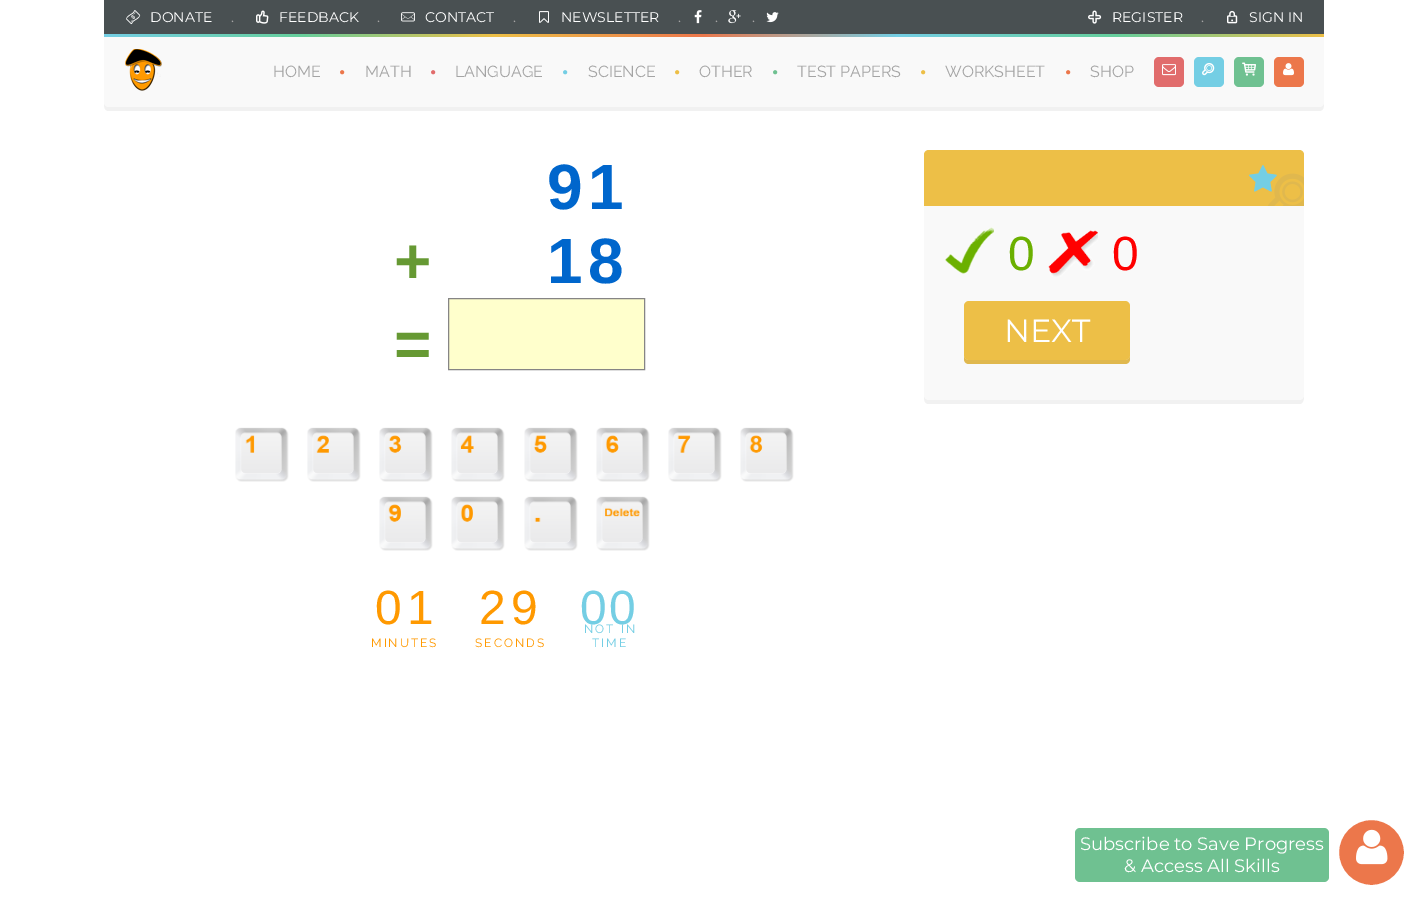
%!PS-Adobe-3.0
%%BoundingBox: 0 0 1427 908
%%LanguageLevel: 3
%%Pages: 1
%%EndComments
%%BeginProlog
/setink { dup -16 bitshift 255 div exch dup -8 bitshift 255 and 255 div exch 255 and 255 div setrgbcolor } def
/usefont { [ exch dup neg 0 0 3 -1 roll 0 0 ] selectfont } def
/disc { newpath 0 360 arc closepath } def
/rrect { 5 dict begin { /r /h /w /y /x } { exch def } forall
  x r add y moveto x w add y 2 copy h add r arct x w add y h add x 1 index r arct
  x y h add x y r arct x y 2 copy exch w add exch r arct closepath end } def
/drawimage { 5 dict begin { /h /w /y /x /name } { exch def } forall
  gsave x y translate w h scale
  w h 8 [w 0 0 h 0 0] name (r) file false 3 colorimage grestore end } def
%%EndProlog
%%BeginSetup
<< /PageSize [1427 908] >> setpagedevice
%%EndSetup
%%Page: 1 1
0 908 translate 1 -1 scale
4 setmiterlimit
16#FFFFFF setink
0 0 1427 908 rectfill
16#495052 setink
104 0 1220 34 rectfill
(img1.raw) 126 10 15 15 drawimage
/Montserrat-Regular 14 usefont
16#FFFFFF setink
150 22 moveto (DONATE) show
16#A4A4A4 setink
231 22 moveto (.) show
(img2.raw) 256 10 13 14 drawimage
16#FFFFFF setink
279 22 moveto (FEEDBACK) show
16#A4A4A4 setink
377 22 moveto (.) show
(img3.raw) 401 12 14 10 drawimage
16#FFFFFF setink
425 22 moveto (CONTACT) show
16#A4A4A4 setink
513 22 moveto (.) show
(img4.raw) 539 11 10 12 drawimage
16#FFFFFF setink
561 22 moveto (NEWSLETTER) show
16#A4A4A4 setink
678 22 moveto (.) show
(img5.raw) 694 10 8 14 drawimage
715 22 moveto (.) show
(img6.raw) 728 10 13 14 drawimage
752 22 moveto (.) show
(img7.raw) 766 12 13 11 drawimage
(img8.raw) 1088 10 14 14 drawimage
16#FFFFFF setink
1112 22 moveto (REGISTER) show
16#A4A4A4 setink
1201 22 moveto (.) show
(img9.raw) 1227 10 11 14 drawimage
16#FFFFFF setink
1249 22 moveto (SIGN IN) show
gsave 104 34 moveto 1324 34 lineto 1324 37 lineto 104 37 lineto closepath clip newpath
<< /ShadingType 2 /ColorSpace /DeviceRGB /Coords [104 36 1324 35] /Extend [true true] /Function << /FunctionType 3 /Domain [0 1] /Functions [<< /FunctionType 2 /Domain [0 1] /C0 [0.455 0.808 0.894] /C1 [0.4 0.808 0.612] /N 1 >> << /FunctionType 2 /Domain [0 1] /C0 [0.4 0.808 0.612] /C1 [0.929 0.749 0.278] /N 1 >> << /FunctionType 2 /Domain [0 1] /C0 [0.929 0.749 0.278] /C1 [0.925 0.467 0.294] /N 1 >> << /FunctionType 2 /Domain [0 1] /C0 [0.925 0.467 0.294] /C1 [0.455 0.808 0.894] /N 1 >> << /FunctionType 2 /Domain [0 1] /C0 [0.455 0.808 0.894] /C1 [0.4 0.808 0.612] /N 1 >> << /FunctionType 2 /Domain [0 1] /C0 [0.4 0.808 0.612] /C1 [0.929 0.749 0.278] /N 1 >>] /Bounds [0.16 0.32 0.49 0.65 0.83] /Encode [0 1 0 1 0 1 0 1 0 1 0 1] >> >> shfill grestore
16#F1F1F1 setink
104 102 moveto 104 106 104 111 109 111 curveto 1319 111 lineto 1324 111 1324 106 1324 102 curveto 1324 105 1322 107 1319 107 curveto 109 107 lineto 106 107 104 105 104 102 curveto closepath fill
16#F9F9F9 setink
104 37 moveto 1324 37 lineto 1324 102 lineto 1324 105 1322 107 1319 107 curveto 109 107 lineto 106 107 104 105 104 102 curveto closepath fill
(img10.raw) 125 49 37 42 drawimage
/Raleway-Thin 16 usefont
16#A4A4A4 setink
273 77 moveto (HOME) show
(img11.raw) 340 70 5 5 drawimage
365 77 moveto (MATH) show
(img12.raw) 431 70 5 5 drawimage
455 77 moveto (LANGUAGE) show
(img13.raw) 563 70 5 5 drawimage
588 77 moveto (SCIENCE) show
(img14.raw) 675 70 5 5 drawimage
699 77 moveto (OTHER) show
(img15.raw) 773 70 5 5 drawimage
797 77 moveto (TEST PAPERS) show
(img14.raw) 921 70 5 5 drawimage
945 77 moveto (WORKSHEET) show
(img11.raw) 1066 70 5 5 drawimage
1090 77 moveto (SHOP) show
16#E16C6C setink
1154 57 30 30 5 rrect fill
(img16.raw) 1162 64 14 12 drawimage
16#74CEE4 setink
1194 57 30 30 5 rrect fill
(img17.raw) 1202 63 13 13 drawimage
16#6FC191 setink
1234 57 30 30 5 rrect fill
(img18.raw) 1242 62 14 14 drawimage
16#EC774B setink
1274 57 30 30 5 rrect fill
(img19.raw) 1283 63 11 13 drawimage
/LiberationSans-Bold 64 usefont
16#0066CC setink
547 209 moveto 5 0 (91) ashow
16#669933 setink
394 283 moveto (+) show
16#0066CC setink
547 283 moveto 5 0 (18) ashow
16#669933 setink
394 366 moveto (=) show
16#FFFFCC setink
448.5 298.5 moveto 644.5 298.5 lineto 644.5 369.5 lineto 448.5 369.5 lineto closepath gsave fill grestore
16#868585 setink
stroke
(img20.raw) 235 427 54 55 drawimage
(img21.raw) 307 427 54 55 drawimage
(img22.raw) 379 427 54 55 drawimage
(img23.raw) 451 427 54 55 drawimage
(img24.raw) 524 427 54 55 drawimage
(img25.raw) 596 427 54 55 drawimage
(img26.raw) 668 427 54 55 drawimage
(img27.raw) 740 427 54 55 drawimage
(img28.raw) 379 496 54 55 drawimage
(img29.raw) 451 496 54 55 drawimage
(img30.raw) 524 496 54 55 drawimage
(img31.raw) 596 496 54 55 drawimage
/LiberationSans-Regular 48 usefont
16#FF9900 setink
375 624 moveto (0) show
407 624 moveto (1) show
/Raleway-Thin 12 usefont
371 647 moveto 2 0 (MINUTES) ashow
/LiberationSans-Regular 48 usefont
479 624 moveto (2) show
511 624 moveto (9) show
/Raleway-Thin 12 usefont
475 647 moveto 2 0 (SECONDS) ashow
/LiberationSans-Regular 48 usefont
16#74CEE4 setink
580 624 moveto 2 0 (00) ashow
/Raleway-Thin 12 usefont
584 633 moveto 2 0 (NOT IN) ashow
592 647 moveto 2 0 (TIME) ashow
16#F1F1F1 setink
924 395 moveto 924 399 924 404 929 404 curveto 1300 404 lineto 1304 403 1304 398 1304 395 curveto 1304 398 1302 400 1299 400 curveto 929 400 lineto 926 400 924 398 924 395 curveto closepath fill
16#F9F9F9 setink
924 150 380 250 5 rrect fill
16#EDBF47 setink
929 150 moveto 1299 150 lineto 1302 150 1304 152 1304 155 curveto 1304 206 lineto 924 206 lineto 924 155 lineto 924 152 926 150 929 150 curveto closepath fill
(img33.raw) 1268 173 36 33 drawimage
(img32.raw) 1249 165 28 27 drawimage
(img34.raw) 945 227 49 47 drawimage
/LiberationSans-Regular 48 usefont
16#6BB000 setink
1008 270 moveto (0) show
(img35.raw) 1048 230 50 47 drawimage
16#FF0000 setink
1112 270 moveto (0) show
16#E0B84E setink
964 355 moveto 964 359 lineto 964 362 966 364 969 364 curveto 1125 364 lineto 1128 364 1130 362 1130 359 curveto 1130 355 lineto 1130 358 1128 360 1125 360 curveto 969 360 lineto 966 360 964 358 964 355 curveto closepath fill
16#EDBF47 setink
964 301 166 59 5 rrect fill
/Montserrat-Regular 32 usefont
16#FFFFFF setink
1004 342 moveto (NEXT) show
16#6FC191 setink
1075 828 254 54 5 rrect fill
/Montserrat-Regular 18 usefont
16#FFFFFF setink
1080 850 moveto (Subscribe to Save Progress) show
1124 872 moveto (& Access All Skills) show
16#EC774B setink
1371.5 852.5 34 disc gsave fill grestore
16#FFFFFF setink
3 setlinewidth
stroke
(img36.raw) 1356 829 32 36 drawimage
showpage
%%EOF
